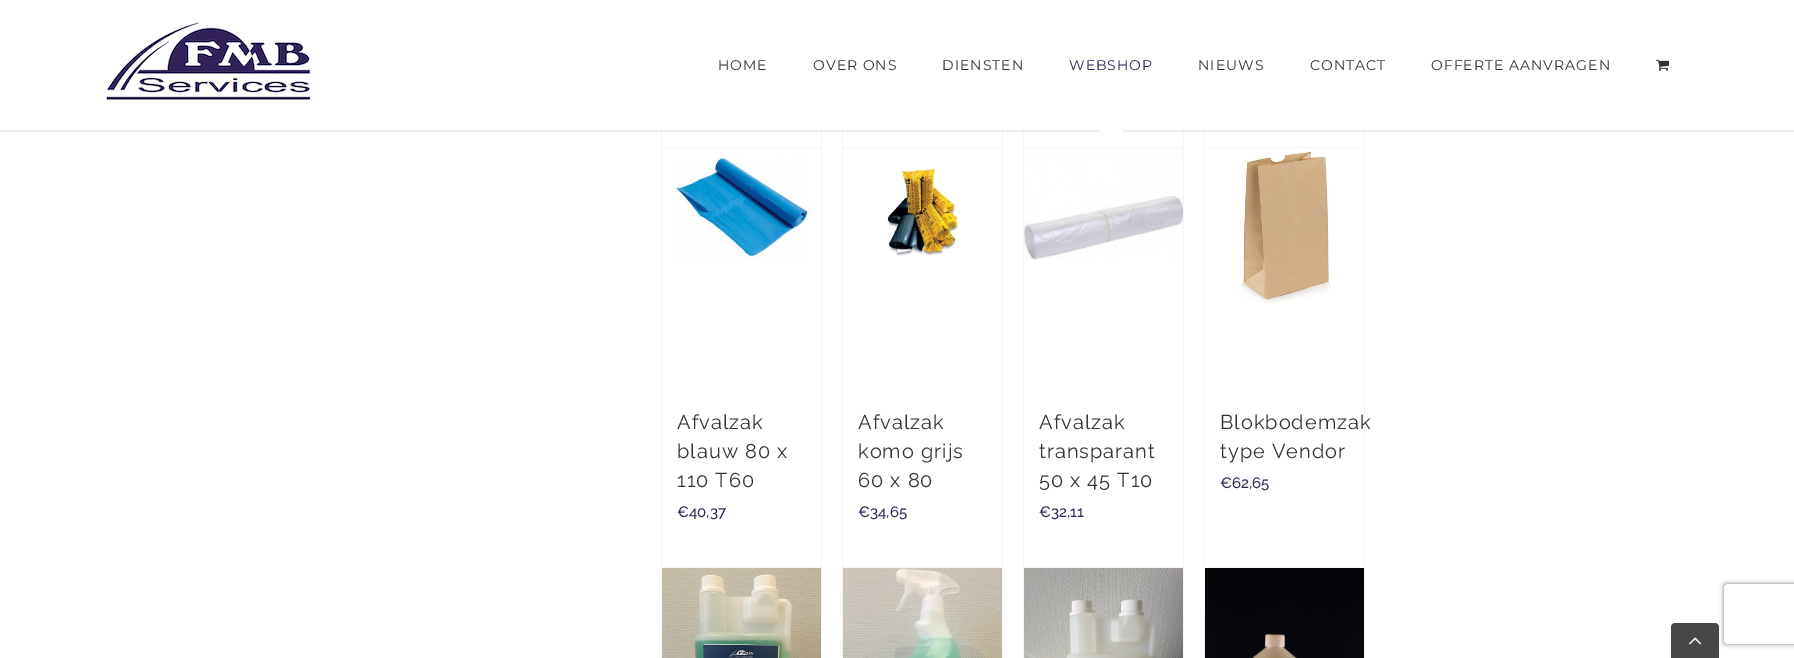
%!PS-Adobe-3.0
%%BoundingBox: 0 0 1794 658
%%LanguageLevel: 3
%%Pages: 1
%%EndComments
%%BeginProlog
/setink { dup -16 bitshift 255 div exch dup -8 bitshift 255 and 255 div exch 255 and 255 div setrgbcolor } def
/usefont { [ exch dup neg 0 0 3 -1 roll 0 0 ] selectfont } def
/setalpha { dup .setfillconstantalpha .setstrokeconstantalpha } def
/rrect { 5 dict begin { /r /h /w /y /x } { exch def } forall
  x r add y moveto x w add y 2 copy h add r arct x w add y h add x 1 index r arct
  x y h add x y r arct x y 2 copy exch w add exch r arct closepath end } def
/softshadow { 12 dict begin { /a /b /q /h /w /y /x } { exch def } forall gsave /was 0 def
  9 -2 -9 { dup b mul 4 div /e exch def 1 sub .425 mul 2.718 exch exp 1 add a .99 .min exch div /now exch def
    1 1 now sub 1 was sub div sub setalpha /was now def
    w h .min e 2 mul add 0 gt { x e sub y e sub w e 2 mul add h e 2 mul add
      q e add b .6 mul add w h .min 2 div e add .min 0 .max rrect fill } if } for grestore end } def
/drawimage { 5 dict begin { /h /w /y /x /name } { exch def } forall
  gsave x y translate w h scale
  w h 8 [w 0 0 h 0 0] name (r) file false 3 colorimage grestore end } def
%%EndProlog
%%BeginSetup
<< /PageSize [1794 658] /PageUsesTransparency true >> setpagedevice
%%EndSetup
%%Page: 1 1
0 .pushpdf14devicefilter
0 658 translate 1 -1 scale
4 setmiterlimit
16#FFFFFF setink
0 0 1794 658 rectfill
[
    [821 130 1 17 16#F5F5F5]
    [661 130 1 17 16#F5F5F5]
    [1002 130 1 17 16#F5F5F5]
    [842 130 1 17 16#F5F5F5]
    [1183 130 1 17 16#F5F5F5]
    [1023 130 1 17 16#F5F5F5]
    [1364 130 1 17 16#F5F5F5]
    [1204 130 1 17 16#F5F5F5]
] { aload pop setink rectfill } forall
16#000000 setink
0 1 1794 130 0 1.5 0.12 softshadow
16#FFFFFF setink
0 0 1794 130 rectfill
(img1.raw) 106 22 205 78 drawimage
/Montserrat-Regular 14 usefont
16#333333 setink
718 70 moveto 1 0 (HOME) ashow
813 70 moveto 1 0 (OVER ONS) ashow
942 70 moveto 1 0 (DIENSTEN) ashow
16#2C2857 setink
1069 70 moveto 1 0 (WEBSHOP) ashow
16#FFFFFF setink
1099.5 130 moveto 1111 142 lineto 1122.5 130 lineto closepath fill
16#333333 setink
1198 70 moveto 1 0 (NIEUWS) ashow
1310 70 moveto 1 0 (CONTACT) ashow
1431 70 moveto 1 0 (OFFERTE AANVRAGEN) ashow
(img2.raw) 1656 59 13 12 drawimage
[
    [661 147 161 1 16#F5F5F5]
    [821 147 1 511 16#F5F5F5]
    [661 147 1 511 16#F5F5F5]
] { aload pop setink rectfill } forall
(img3.raw) 671 157 142 105 drawimage
/Raleway-Regular 20 usefont
16#333333 setink
677 429 moveto 1 0 (Afvalzak) ashow
677 458 moveto 1 0 (blauw 80 x) ashow
677 487 moveto 1 0 (110 T60) ashow
/Raleway-Medium 15 usefont
16#2C2857 setink
677 517 moveto (€40,37) show
[
    [842 147 161 1 16#F5F5F5]
    [1002 147 1 511 16#F5F5F5]
    [842 147 1 511 16#F5F5F5]
] { aload pop setink rectfill } forall
(img4.raw) 887 168 73 88 drawimage
/Raleway-Regular 20 usefont
16#333333 setink
858 429 moveto 1 0 (Afvalzak) ashow
858 458 moveto 1 0 (komo grijs) ashow
858 487 moveto 1 0 (60 x 80) ashow
/Raleway-Medium 15 usefont
16#2C2857 setink
858 517 moveto (€34,65) show
[
    [1023 147 161 1 16#F5F5F5]
    [1183 147 1 511 16#F5F5F5]
    [1023 147 1 511 16#F5F5F5]
] { aload pop setink rectfill } forall
(img5.raw) 1024 148 159 112 drawimage
/Raleway-Regular 20 usefont
16#333333 setink
1039 429 moveto 1 0 (Afvalzak) ashow
1039 458 moveto 1 0 (transparant) ashow
1039 487 moveto 1 0 (50 x 45 T10) ashow
/Raleway-Medium 15 usefont
16#2C2857 setink
1039 517 moveto (€32,11) show
[
    [1204 147 161 1 16#F5F5F5]
    [1364 147 1 511 16#F5F5F5]
    [1204 147 1 511 16#F5F5F5]
] { aload pop setink rectfill } forall
(img6.raw) 1205 148 159 159 drawimage
/Raleway-Regular 20 usefont
16#333333 setink
1220 429 moveto 1 0 (Blokbodemzak) ashow
1220 458 moveto 1 0 (type Vendor) ashow
/Raleway-Medium 15 usefont
16#2C2857 setink
1220 488 moveto (€62,65) show
16#F5F5F5 setink
661 567 161 1 rectfill
(img7.raw) 662 568 159 90 drawimage
842 567 161 1 rectfill
(img8.raw) 843 568 159 90 drawimage
1023 567 161 1 rectfill
(img9.raw) 1024 568 159 90 drawimage
1204 567 161 1 rectfill
(img10.raw) 1205 568 159 90 drawimage
gsave
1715 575 moveto 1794 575 lineto 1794 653 lineto 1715 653 lineto closepath 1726 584 moveto 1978 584 lineto 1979 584 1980 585 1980 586 curveto 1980 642 lineto 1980 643 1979 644 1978 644 curveto 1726 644 lineto 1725 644 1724 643 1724 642 curveto 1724 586 lineto 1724 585 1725 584 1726 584 curveto closepath eoclip newpath
16#808080 setink
1724 584 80 60 2 2.5 1 softshadow
grestore
16#474747 setink
1675 623 moveto 1715 623 lineto 1717 623 1719 625 1719 627 curveto 1719 658 lineto 1671 658 lineto 1671 627 lineto 1671 625 1673 623 1675 623 curveto closepath fill
(img11.raw) 1689 637 13 8 drawimage
.poppdf14devicefilter showpage
%%EOF
